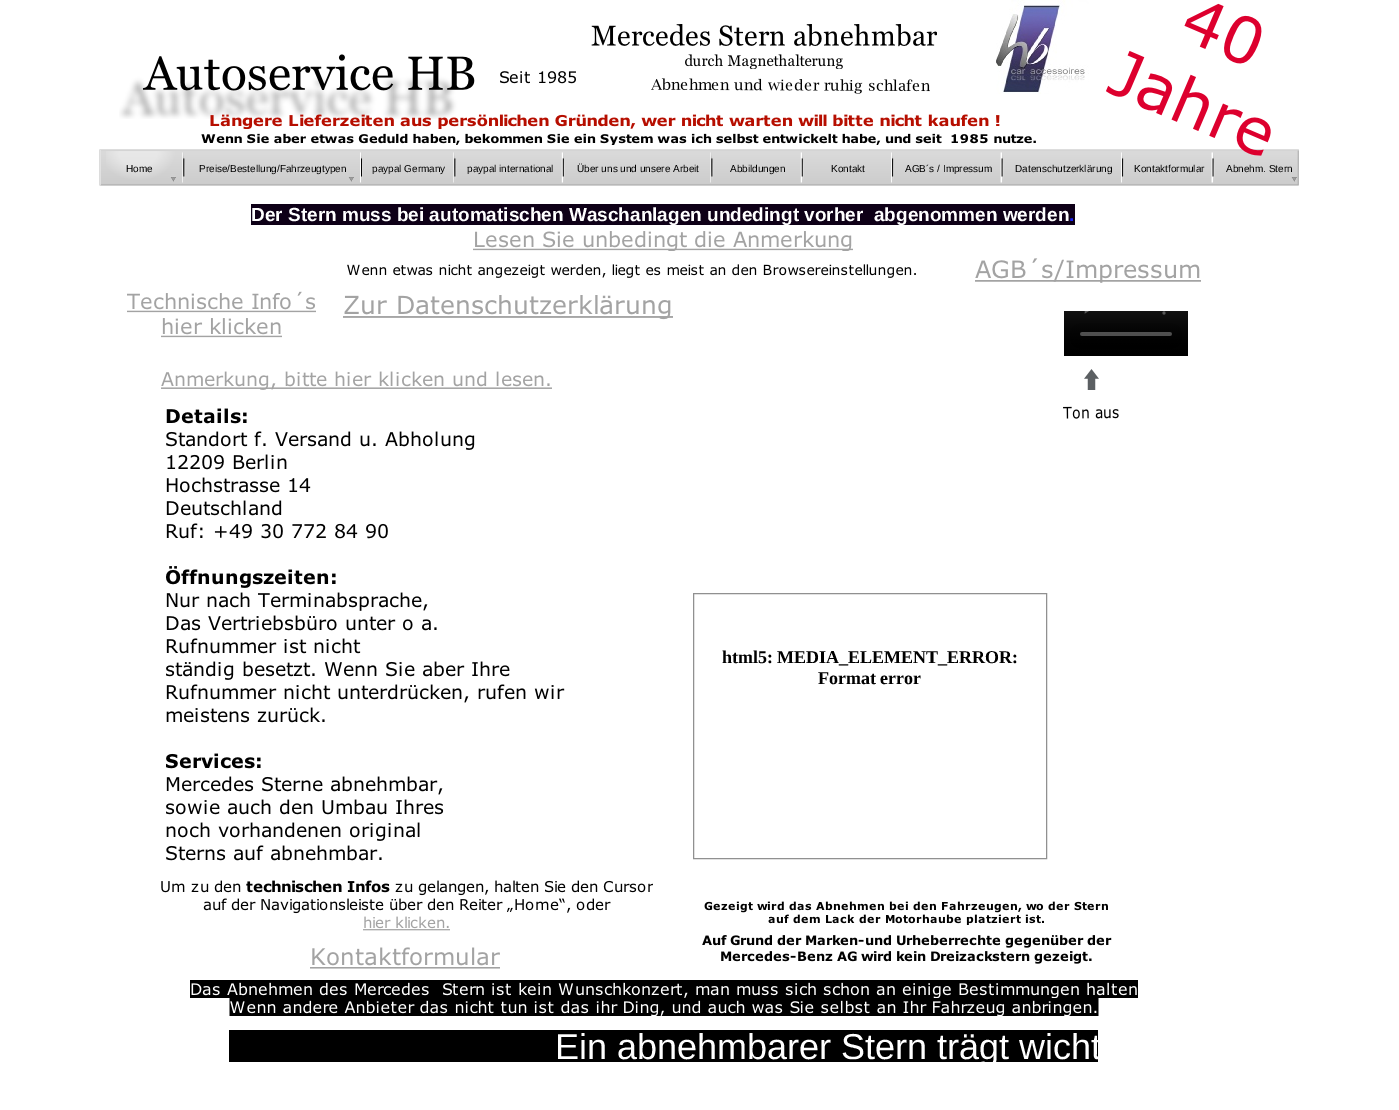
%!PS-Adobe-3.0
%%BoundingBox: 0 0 1399 1110
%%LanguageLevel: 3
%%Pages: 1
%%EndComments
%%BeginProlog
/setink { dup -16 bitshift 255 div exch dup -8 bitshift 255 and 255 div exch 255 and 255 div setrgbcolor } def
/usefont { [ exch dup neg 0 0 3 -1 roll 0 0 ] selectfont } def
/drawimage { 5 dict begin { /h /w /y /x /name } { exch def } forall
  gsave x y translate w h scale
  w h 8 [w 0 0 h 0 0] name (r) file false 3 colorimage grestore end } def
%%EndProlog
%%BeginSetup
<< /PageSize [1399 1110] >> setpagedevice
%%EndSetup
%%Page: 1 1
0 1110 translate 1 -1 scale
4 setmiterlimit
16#FFFFFF setink
0 0 1399 1110 rectfill
(img1.raw) 591 24 346 45 drawimage
(img2.raw) 996 0 93 94 drawimage
(img9.raw) 99 149 1200 37 drawimage
(img3.raw) 1106 3 165 153 drawimage
(img4.raw) 119 54 356 65 drawimage
(img5.raw) 500 71 76 13 drawimage
(img6.raw) 651 78 279 16 drawimage
(img7.raw) 210 114 790 15 drawimage
(img8.raw) 201 133 835 12 drawimage
(img10.raw) 106 151 70 31 drawimage
/LiberationSans-Regular 10 usefont
16#000000 setink
126 172 moveto (Home) show
(img11.raw) 348 177 6 5 drawimage
[
    [(Preise/Bestellung/Fahrzeugtypen) 199 172]
    [(paypal Germany) 372 172]
    [(paypal international) 467 172]
    [(Über uns und unsere Arbeit) 577 172]
    [(Abbildungen) 730 172]
    [(Kontakt) 831 172]
    [(AGB´s / Impressum) 905 172]
    [(Datenschutzerklärung) 1015 172]
    [(Kontaktformular) 1134 172]
] { aload pop moveto show } forall
(img12.raw) 1291 177 6 5 drawimage
1226 172 moveto (Abnehm. Stern) show
16#0E0017 setink
251 204 824 21 rectfill
/LiberationSans-Bold 19 usefont
16#FFFFFF setink
251 221 moveto (Der Stern muss bei automatischen Waschanlagen undedingt vorher  abgenommen werden) show
16#1A23FF setink
1069 221 moveto (.) show
(img13.raw) 473 231 380 20 drawimage
(img14.raw) 347 264 569 14 drawimage
(img15.raw) 975 258 226 25 drawimage
(img16.raw) 127 291 189 47 drawimage
(img17.raw) 343 295 330 25 drawimage
(img18.raw) 1064 311 124 45 drawimage
(img19.raw) 161 371 391 19 drawimage
(img20.raw) 1084 369 15 21 drawimage
(img21.raw) 166 408 399 453 drawimage
16#909090 setink
693.5 593.5 353 265 rectstroke
/LiberationSerif-Bold 18 usefont
16#000000 setink
722 663 moveto (html5: MEDIA_ELEMENT_ERROR:) show
818 684 moveto (Format error) show
(img22.raw) 1063 406 56 13 drawimage
(img23.raw) 161 880 492 51 drawimage
(img24.raw) 704 901 404 24 drawimage
(img25.raw) 310 947 190 22 drawimage
(img26.raw) 702 935 410 29 drawimage
(img27.raw) 190 980 948 36 drawimage
229 1030 869 32 rectfill
gsave
229 1025 869 43 rectclip
/LiberationSans-Regular 36 usefont
16#FFFFFF setink
555 1059 moveto (Ein abnehmbarer Stern trägt wicht) show
grestore
showpage
%%EOF
